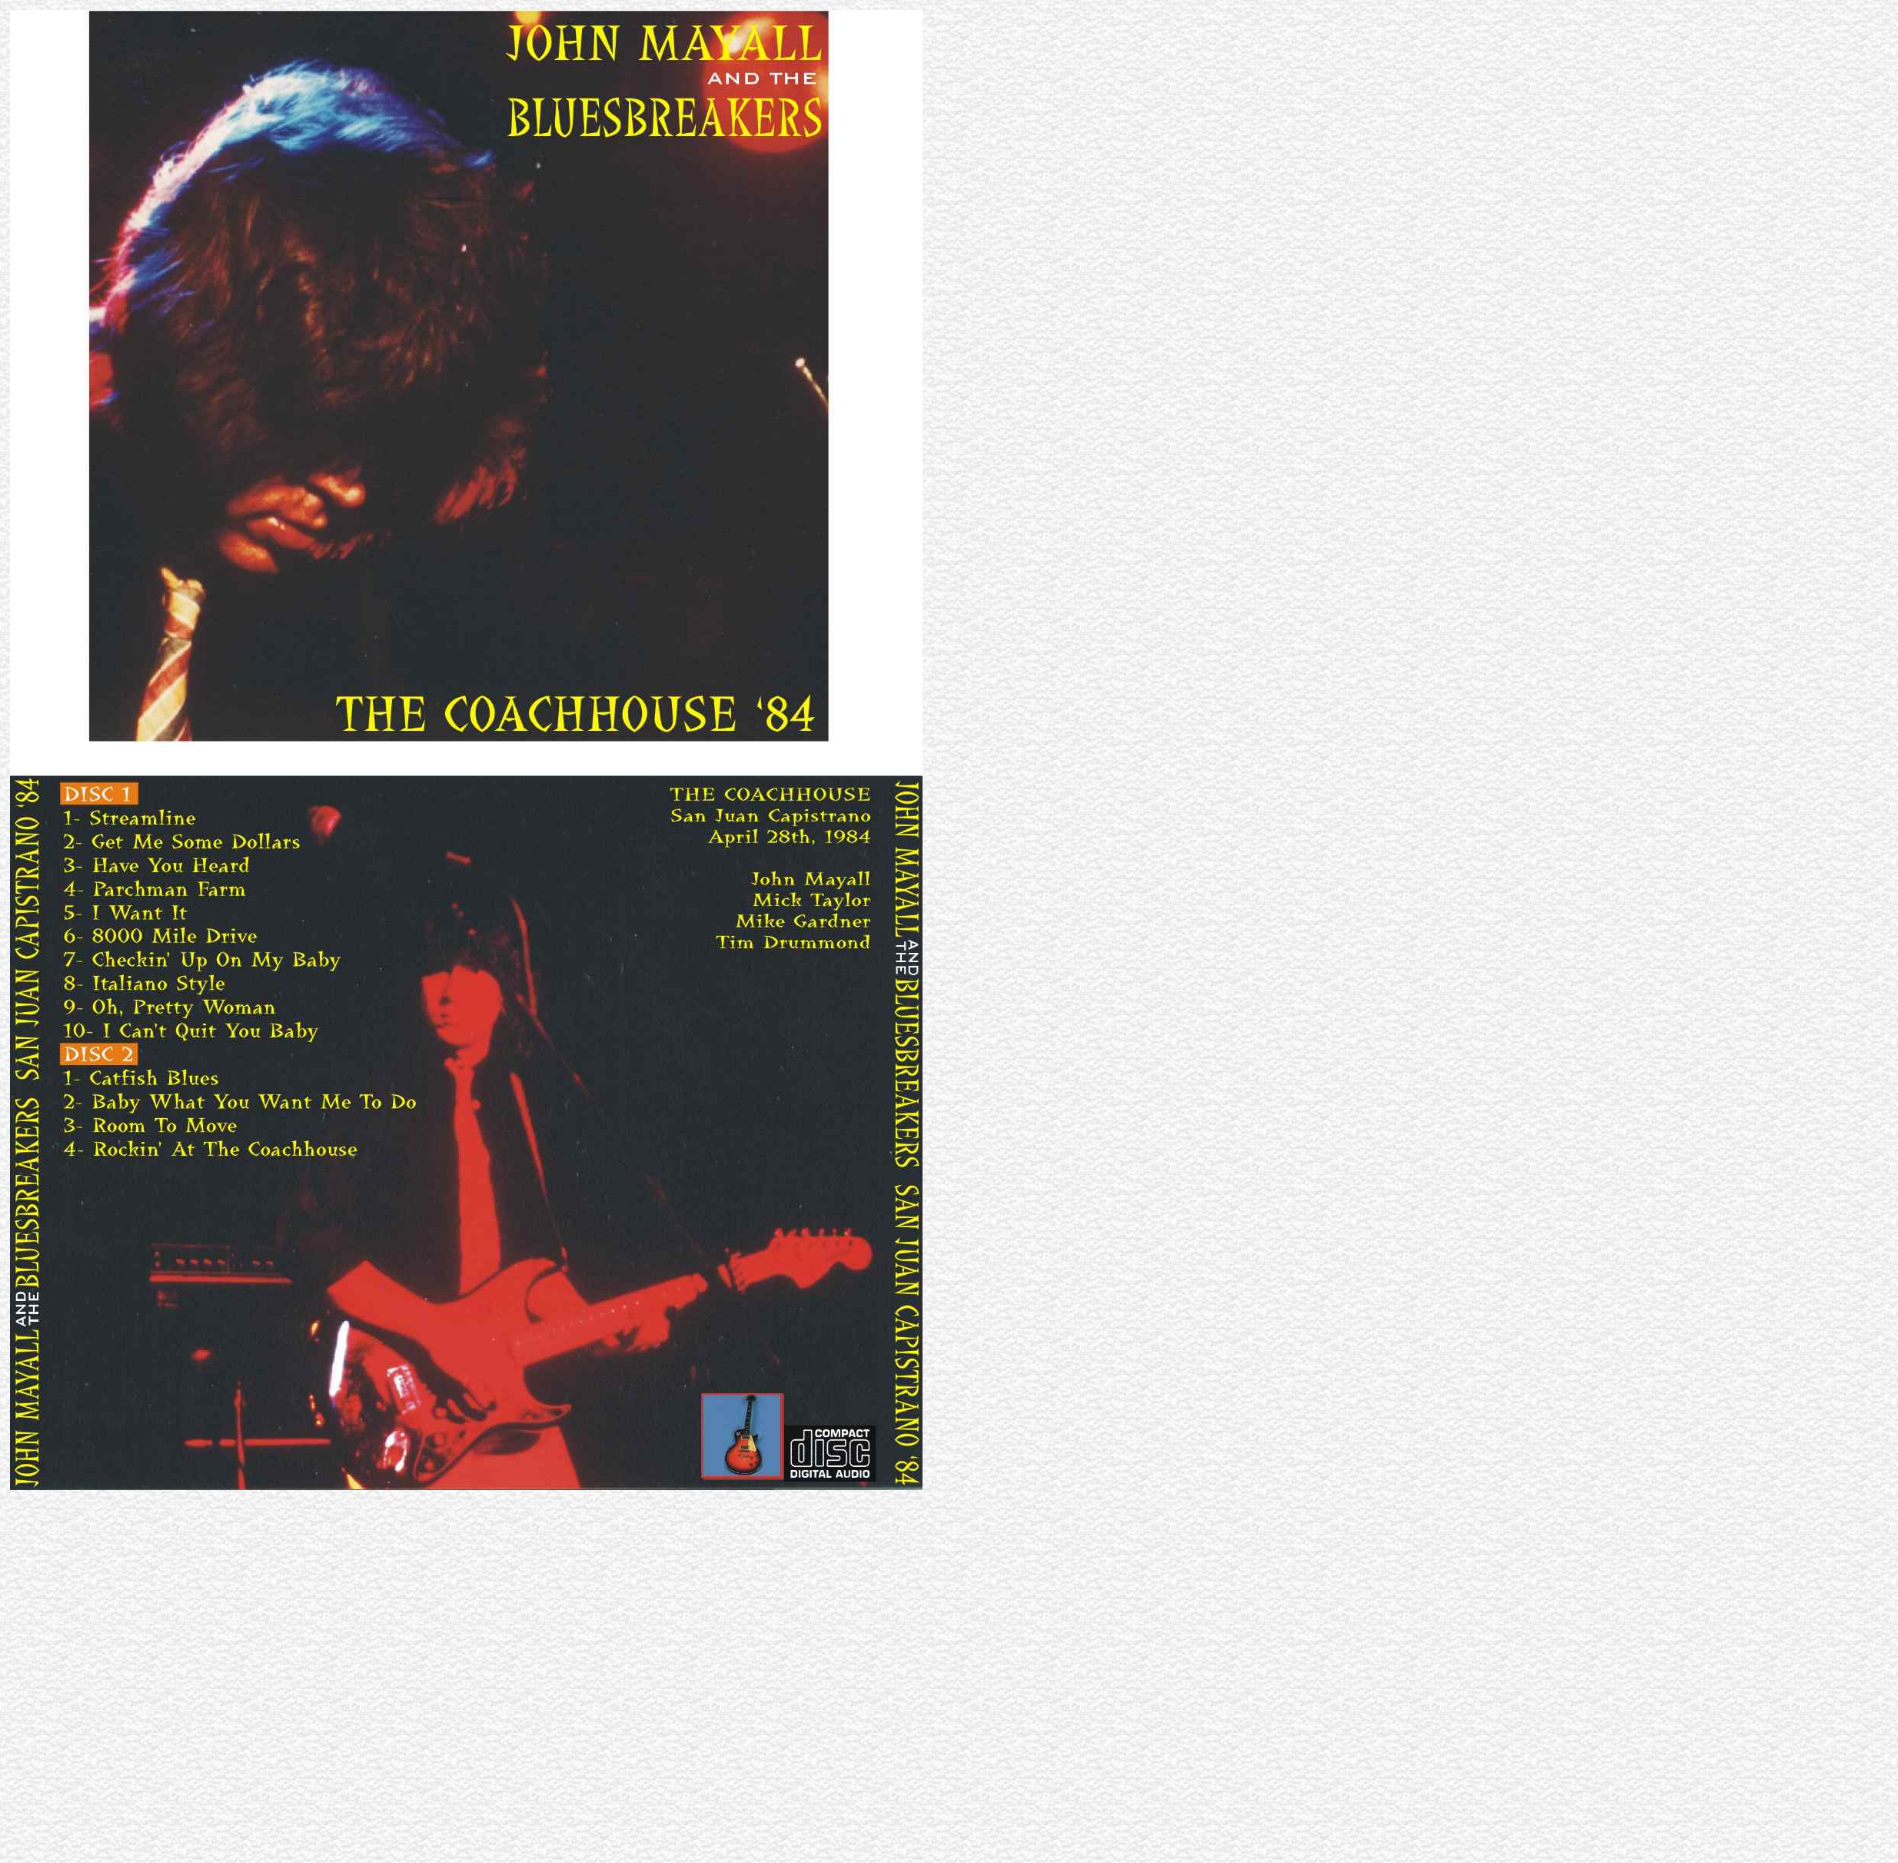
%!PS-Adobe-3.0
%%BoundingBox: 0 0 1898 1863
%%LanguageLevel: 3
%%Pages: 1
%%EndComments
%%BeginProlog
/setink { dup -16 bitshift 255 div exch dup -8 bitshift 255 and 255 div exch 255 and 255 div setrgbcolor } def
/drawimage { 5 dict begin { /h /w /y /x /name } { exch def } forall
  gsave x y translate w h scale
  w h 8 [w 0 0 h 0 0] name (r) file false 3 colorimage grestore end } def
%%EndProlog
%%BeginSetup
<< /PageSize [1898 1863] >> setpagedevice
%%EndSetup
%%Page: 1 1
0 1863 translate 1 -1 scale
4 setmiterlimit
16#FFFFFF setink
0 0 1898 1863 rectfill
(img1.raw) 0 0 1898 1863 drawimage
(img2.raw) 10 10 913 1480 drawimage
showpage
%%EOF
